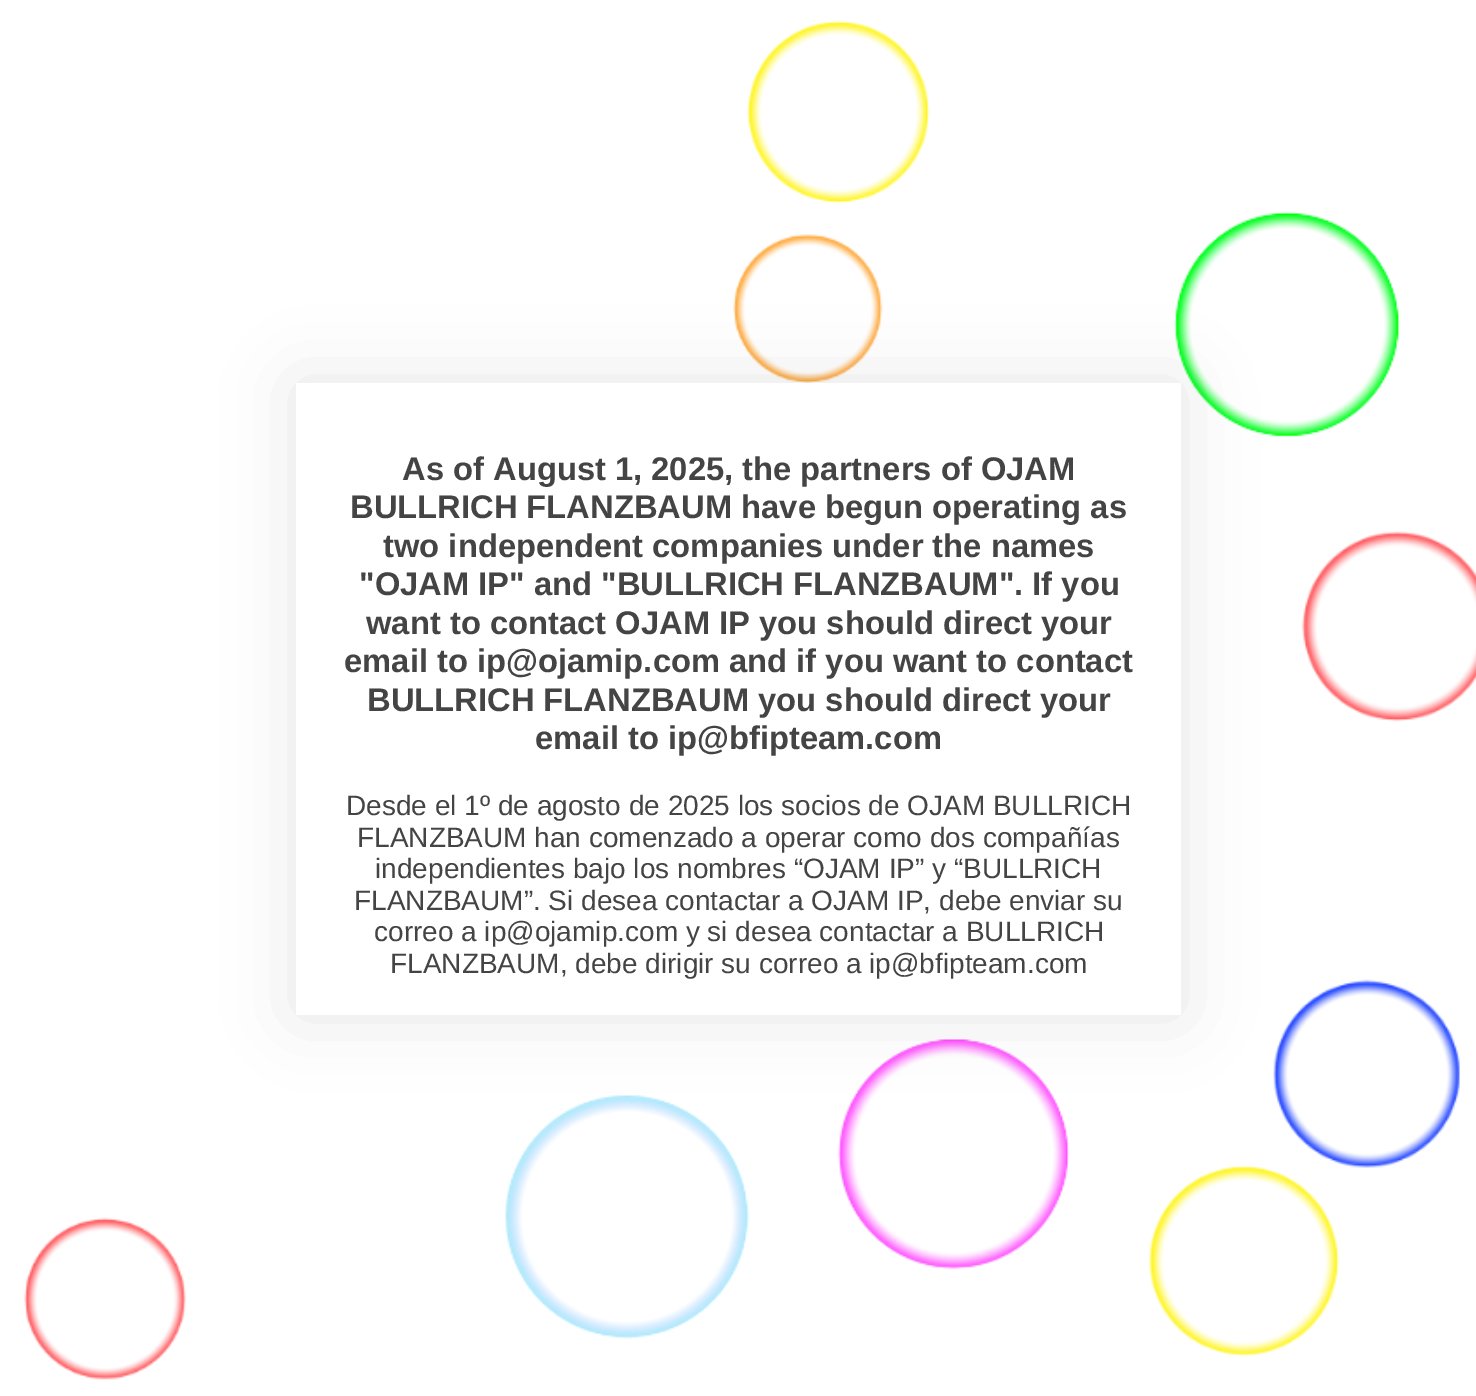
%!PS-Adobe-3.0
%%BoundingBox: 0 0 1476 1396
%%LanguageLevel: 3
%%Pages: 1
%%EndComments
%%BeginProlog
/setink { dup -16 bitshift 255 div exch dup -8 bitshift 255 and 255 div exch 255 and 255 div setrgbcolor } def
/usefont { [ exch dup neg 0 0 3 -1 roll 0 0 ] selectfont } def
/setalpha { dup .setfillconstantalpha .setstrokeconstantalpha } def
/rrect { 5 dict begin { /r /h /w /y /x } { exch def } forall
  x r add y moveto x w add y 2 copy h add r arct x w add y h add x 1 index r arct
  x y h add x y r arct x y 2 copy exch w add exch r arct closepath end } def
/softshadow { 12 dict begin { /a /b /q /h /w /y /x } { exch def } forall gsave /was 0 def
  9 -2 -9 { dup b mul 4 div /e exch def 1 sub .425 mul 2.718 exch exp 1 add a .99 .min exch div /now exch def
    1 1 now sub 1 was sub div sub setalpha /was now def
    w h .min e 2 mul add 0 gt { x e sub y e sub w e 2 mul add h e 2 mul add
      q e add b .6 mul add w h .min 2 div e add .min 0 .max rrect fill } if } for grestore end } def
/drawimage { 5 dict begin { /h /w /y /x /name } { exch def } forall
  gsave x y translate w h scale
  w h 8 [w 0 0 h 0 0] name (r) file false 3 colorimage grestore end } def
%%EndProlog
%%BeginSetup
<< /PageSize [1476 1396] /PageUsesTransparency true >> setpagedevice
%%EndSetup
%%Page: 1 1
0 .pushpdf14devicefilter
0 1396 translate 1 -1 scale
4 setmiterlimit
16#FFFFFF setink
0 0 1476 1396 rectfill
(img1.raw) 24 20 1452 1360 drawimage
16#000000 setink
296 383 885 632 0 35 0.1 softshadow
16#FFFFFF setink
296 383 885 632 rectfill
/LiberationSans-Bold 32.75 usefont
16#444444 setink
[
    [(As of August 1, 2025, the partners of OJAM) 402 480]
    [(BULLRICH FLANZBAUM have begun operating as) 350 518]
    [(two independent companies under the names) 383 557]
    [("OJAM IP" and "BULLRICH FLANZBAUM". If you) 359 595]
    [(want to contact OJAM IP you should direct your) 366 634]
    [(email to ip@ojamip.com and if you want to contact) 344 672]
    [(BULLRICH FLANZBAUM you should direct your) 367 711]
    [(email to ip@bfipteam.com) 535 749]
] { aload pop moveto show } forall
/LiberationSans-Regular 28 usefont
[
    [(Desde el 1º de agosto de 2025 los socios de OJAM BULLRICH) 346 815]
    [(FLANZBAUM han comenzado a operar como dos compañías) 357 847]
    [(independientes bajo los nombres “OJAM IP” y “BULLRICH) 375 878]
    [(FLANZBAUM”. Si desea contactar a OJAM IP, debe enviar su) 354 910]
    [(correo a ip@ojamip.com y si desea contactar a BULLRICH) 374 941]
    [(FLANZBAUM, debe dirigir su correo a ip@bfipteam.com) 390 973]
] { aload pop moveto show } forall
.poppdf14devicefilter showpage
%%EOF
